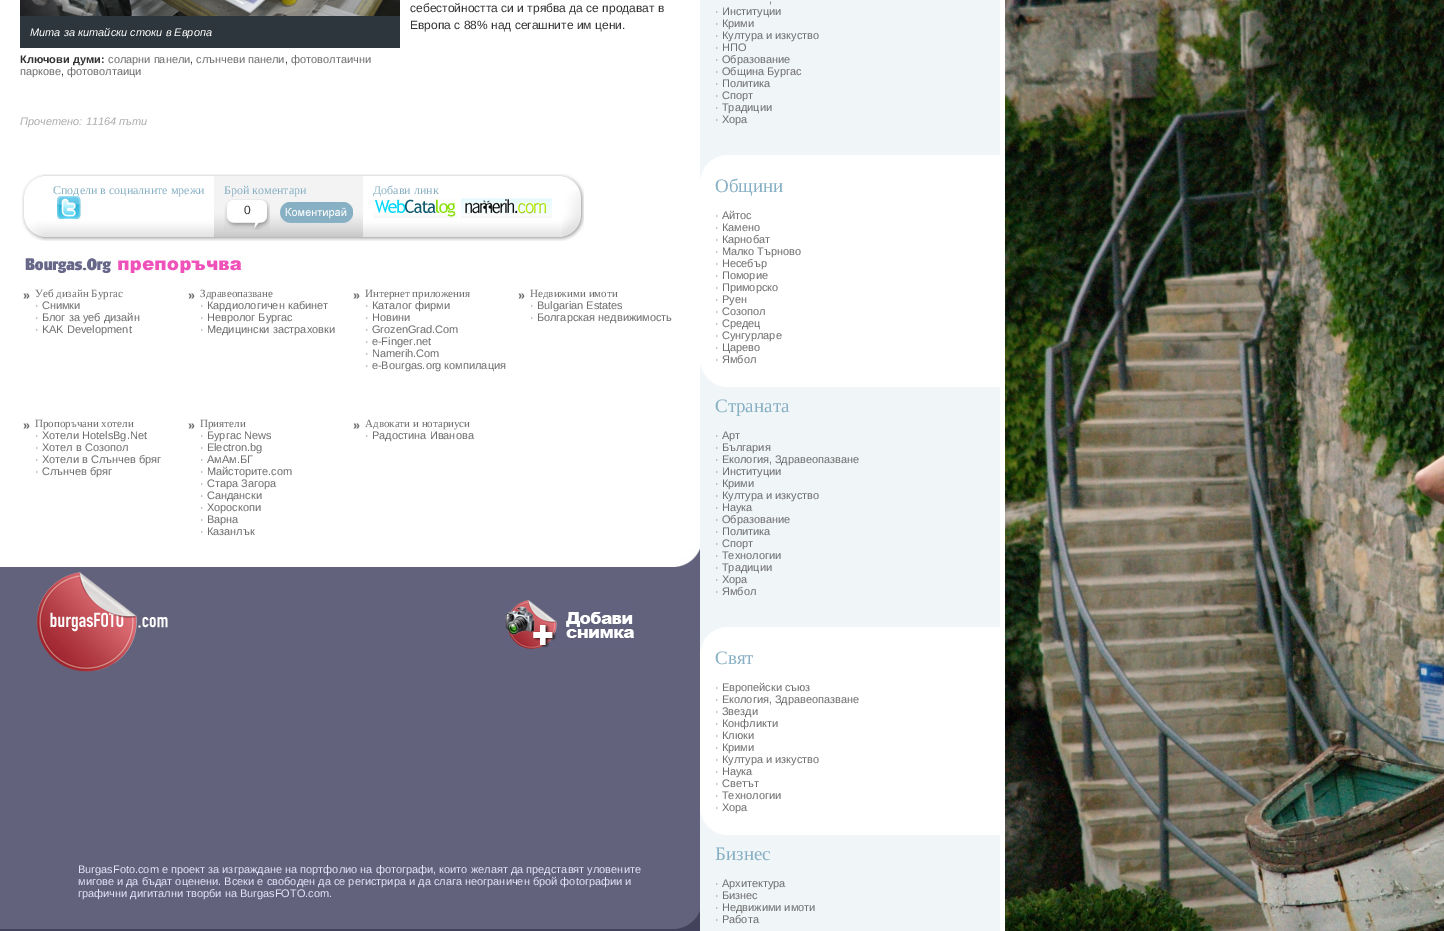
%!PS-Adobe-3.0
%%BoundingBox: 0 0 1444 931
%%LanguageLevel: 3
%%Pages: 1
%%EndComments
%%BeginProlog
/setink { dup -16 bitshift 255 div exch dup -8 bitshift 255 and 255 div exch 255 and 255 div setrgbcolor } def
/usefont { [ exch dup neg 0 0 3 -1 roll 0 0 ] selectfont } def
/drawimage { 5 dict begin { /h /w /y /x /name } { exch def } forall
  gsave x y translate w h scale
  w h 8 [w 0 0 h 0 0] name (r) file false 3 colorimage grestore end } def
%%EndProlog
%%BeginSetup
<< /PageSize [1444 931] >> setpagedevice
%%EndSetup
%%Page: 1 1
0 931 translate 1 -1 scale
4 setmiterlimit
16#FFFFFF setink
0 0 1444 931 rectfill
(img1.raw) 675 541 25 26 drawimage
/LiberationSans-Regular 12 usefont
16#333333 setink
410 12 moveto (себестойността си и трябва да се продават в) show
410 29 moveto (Европа с 88% над сегашните им цени.) show
(img2.raw) 20 0 380 16 drawimage
16#2C363C setink
20 16 380 32 rectfill
/LiberationSans-Italic 11 usefont
16#FFFFFF setink
30 36 moveto (Мита за китайски стоки в Европа) show
/LiberationSans-Bold 11 usefont
16#333333 setink
20 63 moveto (Ключови думи:) show
/LiberationSans-Regular 11 usefont
16#6D6D6D setink
108 63 moveto (соларни панели) show
16#333333 setink
190 63 moveto (,) show
16#6D6D6D setink
196 63 moveto (слънчеви панели) show
16#333333 setink
285 63 moveto (,) show
16#6D6D6D setink
291 63 moveto (фотоволтаични) show
20 75 moveto (паркове) show
16#333333 setink
61 75 moveto (,) show
16#6D6D6D setink
67 75 moveto (фотоволтаици) show
/LiberationSans-Italic 11 usefont
16#ACACAC setink
20 125 moveto (Прочетено: 11164 пъти) show
(img3.raw) 21 174 22 67 drawimage
(img4.raw) 43 174 171 67 drawimage
/LiberationSerif-Regular 12 usefont
16#87B0C4 setink
53 194 moveto (Сподели в социалните мрежи) show
(img5.raw) 57 196 24 23 drawimage
(img6.raw) 214 174 149 67 drawimage
224 194 moveto (Брой коментари) show
(img7.raw) 224 199 46 31 drawimage
/LiberationSans-Regular 12 usefont
16#333333 setink
244 214 moveto (0) show
(img8.raw) 280 202 73 21 drawimage
(img9.raw) 363 174 199 67 drawimage
/LiberationSerif-Regular 12 usefont
16#87B0C4 setink
373 194 moveto (Добави линк) show
(img10.raw) 373 198 84 20 drawimage
(img11.raw) 461 198 91 20 drawimage
(img12.raw) 562 174 22 67 drawimage
(img13.raw) 21 255 223 18 drawimage
(img14.raw) 23 293 7 6 drawimage
/LiberationSerif-Regular 11 usefont
16#6D6D6D setink
35 297 moveto (Уеб дизайн Бургас) show
/LiberationSans-Regular 11 usefont
[
    [(· Снимки) 35 309]
    [(· Блог за уеб дизайн) 35 321]
    [(· KAK Development) 35 333]
] { aload pop moveto show } forall
(img14.raw) 188 293 7 6 drawimage
/LiberationSerif-Regular 11 usefont
200 297 moveto (Здравеопазване) show
/LiberationSans-Regular 11 usefont
[
    [(· Кардиологичен кабинет) 200 309]
    [(· Невролог Бургас) 200 321]
    [(· Медицински застраховки) 200 333]
] { aload pop moveto show } forall
(img14.raw) 353 293 7 6 drawimage
/LiberationSerif-Regular 11 usefont
365 297 moveto (Интернет приложения) show
/LiberationSans-Regular 11 usefont
[
    [(· Каталог фирми) 365 309]
    [(· Новини) 365 321]
    [(· GrozenGrad.Com) 365 333]
    [(· e-Finger.net) 365 345]
    [(· Namerih.Com) 365 357]
    [(· e-Bourgas.org компилация) 365 369]
] { aload pop moveto show } forall
(img14.raw) 518 293 7 6 drawimage
/LiberationSerif-Regular 11 usefont
530 297 moveto (Недвижими имоти) show
/LiberationSans-Regular 11 usefont
530 309 moveto (· Bulgarian Estates) show
530 321 moveto (· Болгарская недвижимость) show
(img14.raw) 23 423 7 6 drawimage
/LiberationSerif-Regular 11 usefont
35 427 moveto (Пропоръчани хотели) show
/LiberationSans-Regular 11 usefont
[
    [(· Хотели HotelsBg.Net) 35 439]
    [(· Хотел в Созопол) 35 451]
    [(· Хотели в Слънчев бряг) 35 463]
    [(· Слънчев бряг) 35 475]
] { aload pop moveto show } forall
(img14.raw) 188 423 7 6 drawimage
/LiberationSerif-Regular 11 usefont
200 427 moveto (Приятели) show
/LiberationSans-Regular 11 usefont
[
    [(· Бургас News) 200 439]
    [(· Electron.bg) 200 451]
    [(· АмАм.БГ) 200 463]
    [(· Майсторите.com) 200 475]
    [(· Стара Загора) 200 487]
    [(· Сандански) 200 499]
    [(· Хороскопи) 200 511]
    [(· Варна) 200 523]
    [(· Казанлък) 200 535]
] { aload pop moveto show } forall
(img14.raw) 353 423 7 6 drawimage
/LiberationSerif-Regular 11 usefont
365 427 moveto (Адвокати и нотариуси) show
/LiberationSans-Regular 11 usefont
365 439 moveto (· Радостина Иванова) show
16#62627C setink
0 567 700 362 rectfill
(img15.raw) 676 911 24 18 drawimage
(img16.raw) 35 567 136 105 drawimage
(img17.raw) 505 600 129 49 drawimage
16#E4E4FB setink
[
    [(BurgasFoto.com е проект за изграждане на портфолио на фотографи, които желаят да представят уловените) 78 873]
    [(мигове и да бъдат оценени. Всеки е свободен да се регистрира и да слага неограничен брой фоtографии и) 78 885]
    [(графични дигитални творби на BurgasFOTO.com.) 78 897]
] { aload pop moveto show } forall
16#42425C setink
0 929 700 2 rectfill
16#F0F5F8 setink
700 0 300 155 rectfill
16#6D6D6D setink
[
    [(,) 769 3]
    [(· Институции) 715 15]
    [(· Крими) 715 27]
    [(· Култура и изкуство) 715 39]
    [(· НПО) 715 51]
    [(· Образование) 715 63]
    [(· Община Бургас) 715 75]
    [(· Политика) 715 87]
    [(· Спорт) 715 99]
    [(· Традиции) 715 111]
    [(· Хора) 715 123]
] { aload pop moveto show } forall
(img18.raw) 700 155 24 24 drawimage
/LiberationSerif-Regular 19 usefont
16#87B0C4 setink
715 192 moveto (Общини) show
/LiberationSans-Regular 11 usefont
16#6D6D6D setink
[
    [(· Айтос) 715 219]
    [(· Камено) 715 231]
    [(· Карнобат) 715 243]
    [(· Малко Търново) 715 255]
    [(· Несебър) 715 267]
    [(· Поморие) 715 279]
    [(· Приморско) 715 291]
    [(· Руен) 715 303]
    [(· Созопол) 715 315]
    [(· Средец) 715 327]
    [(· Сунгурларе) 715 339]
    [(· Царево) 715 351]
    [(· Ямбол) 715 363]
] { aload pop moveto show } forall
16#F0F5F8 setink
700 387 300 240 rectfill
(img19.raw) 700 365 300 22 drawimage
/LiberationSerif-Regular 19 usefont
16#87B0C4 setink
715 412 moveto (Страната) show
/LiberationSans-Regular 11 usefont
16#6D6D6D setink
[
    [(· Арт) 715 439]
    [(· България) 715 451]
    [(· Екология, Здравеопазване) 715 463]
    [(· Институции) 715 475]
    [(· Крими) 715 487]
    [(· Култура и изкуство) 715 499]
    [(· Наука) 715 511]
    [(· Образование) 715 523]
    [(· Политика) 715 535]
    [(· Спорт) 715 547]
    [(· Технологии) 715 559]
    [(· Традиции) 715 571]
    [(· Хора) 715 583]
    [(· Ямбол) 715 595]
] { aload pop moveto show } forall
(img18.raw) 700 627 24 24 drawimage
/LiberationSerif-Regular 19 usefont
16#87B0C4 setink
715 664 moveto (Свят) show
/LiberationSans-Regular 11 usefont
16#6D6D6D setink
[
    [(· Европейски съюз) 715 691]
    [(· Екология, Здравеопазване) 715 703]
    [(· Звезди) 715 715]
    [(· Конфликти) 715 727]
    [(· Клюки) 715 739]
    [(· Крими) 715 751]
    [(· Култура и изкуство) 715 763]
    [(· Наука) 715 775]
    [(· Светът) 715 787]
    [(· Технологии) 715 799]
] { aload pop moveto show } forall
(img19.raw) 700 813 300 22 drawimage
715 811 moveto (· Хора) show
16#F0F5F8 setink
700 835 300 96 rectfill
/LiberationSerif-Regular 19 usefont
16#87B0C4 setink
715 860 moveto (Бизнес) show
/LiberationSans-Regular 11 usefont
16#6D6D6D setink
[
    [(· Архитектура) 715 887]
    [(· Бизнес) 715 899]
    [(· Недвижими имоти) 715 911]
    [(· Работа) 715 923]
] { aload pop moveto show } forall
(img20.raw) 1005 0 439 931 drawimage
showpage
%%EOF
